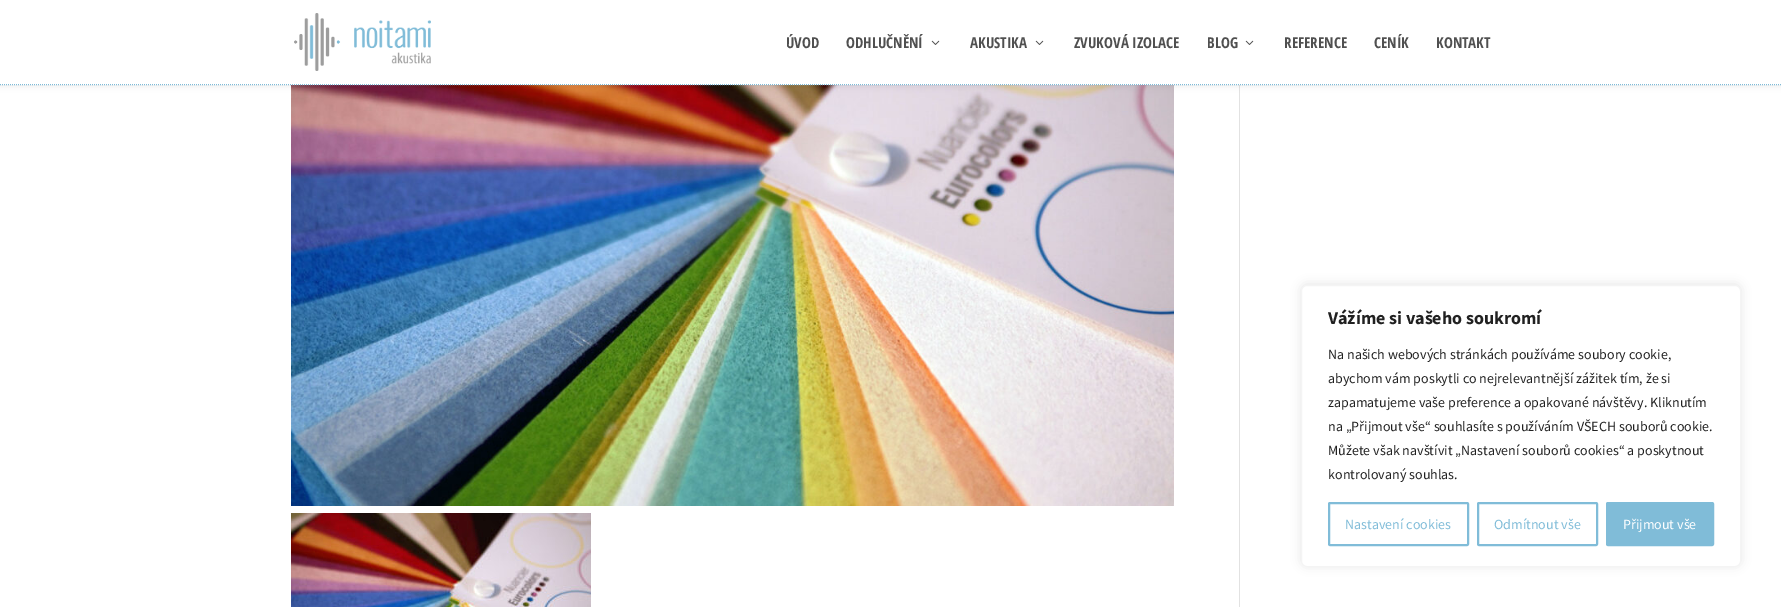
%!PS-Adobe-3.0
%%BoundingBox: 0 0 1781 607
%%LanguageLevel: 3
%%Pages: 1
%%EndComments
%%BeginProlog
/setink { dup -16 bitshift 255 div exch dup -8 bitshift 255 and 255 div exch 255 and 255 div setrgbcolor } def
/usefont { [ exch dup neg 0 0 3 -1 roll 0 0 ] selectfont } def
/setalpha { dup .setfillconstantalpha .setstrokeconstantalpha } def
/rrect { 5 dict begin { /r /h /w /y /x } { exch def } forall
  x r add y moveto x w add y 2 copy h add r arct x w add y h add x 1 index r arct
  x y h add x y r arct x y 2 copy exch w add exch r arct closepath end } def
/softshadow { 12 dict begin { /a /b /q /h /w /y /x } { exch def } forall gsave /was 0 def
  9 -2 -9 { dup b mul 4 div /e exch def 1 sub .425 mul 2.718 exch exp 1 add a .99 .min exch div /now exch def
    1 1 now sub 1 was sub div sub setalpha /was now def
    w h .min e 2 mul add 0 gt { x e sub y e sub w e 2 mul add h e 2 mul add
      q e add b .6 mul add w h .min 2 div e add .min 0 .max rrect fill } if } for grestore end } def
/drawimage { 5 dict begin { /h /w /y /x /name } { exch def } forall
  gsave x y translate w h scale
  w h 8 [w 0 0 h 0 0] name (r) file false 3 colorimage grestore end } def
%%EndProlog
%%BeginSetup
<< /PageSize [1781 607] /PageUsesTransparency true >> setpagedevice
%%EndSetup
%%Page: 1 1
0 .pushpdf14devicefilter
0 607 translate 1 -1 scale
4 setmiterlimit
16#FFFFFF setink
0 0 1781 607 rectfill
(img3.raw) 291 85 883 421 drawimage
16#E2E2E2 setink
1239 85 1 522 rectfill
16#000000 setink
0 0 1781 85 0 3.5 0.1 softshadow
16#FFFFFF setink
0 0 1781 85 rectfill
16#7FBBD7 setink
[1 1] 0 setdash
0 84.5 moveto 1781 84.5 lineto stroke
(img1.raw) 294 13 137 58 drawimage
/OpenSansCondensed-Bold 15 usefont
16#505050 setink
786 48 moveto (ÚVOD) show
846 48 moveto (ODHLUČNĚNÍ) show
(img2.raw) 931 40 9 5 drawimage
970 48 moveto (AKUSTIKA) show
(img2.raw) 1035 40 9 5 drawimage
1074 48 moveto (ZVUKOVÁ IZOLACE) show
1207 48 moveto (BLOG) show
(img2.raw) 1245 40 9 5 drawimage
[
    [(REFERENCE) 1284 48]
    [(CENÍK) 1374 48]
    [(KONTAKT) 1436 48]
] { aload pop moveto show } forall
(img4.raw) 291 513 300 94 drawimage
16#ACABAB setink
1301 284 440 282 6 5 0.3 softshadow
16#FFFFFF setink
1301.5 285.5 439 281 5.5 rrect gsave fill grestore
16#F4F4F4 setink
[] 0 setdash
stroke
/SourceSansPro-Bold 18 usefont
16#212121 setink
1328 324 moveto (Vážíme si vašeho soukromí) show
/SourceSansPro-Regular 14 usefont
[
    [(Na našich webových stránkách používáme soubory cookie,) 1328 359]
    [(abychom vám poskytli co nejrelevantnější zážitek tím, že si) 1328 383]
    [(zapamatujeme vaše preference a opakované návštěvy. Kliknutím) 1328 407]
    [(na „Přijmout vše“ souhlasíte s používáním VŠECH souborů cookie.) 1328 431]
    [(Můžete však navštívit „Nastavení souborů cookies“ a poskytnout) 1328 455]
    [(kontrolovaný souhlas.) 1328 479]
] { aload pop moveto show } forall
16#80BCD8 setink
2 setlinewidth
1329 503 139 42 1 rrect stroke
1345 529 moveto (Nastavení cookies) show
1478 503 119 42 1 rrect stroke
1494 529 moveto (Odmítnout vše) show
1607 503 106 42 1 rrect gsave fill grestore
stroke
16#FFFFFF setink
1623 529 moveto (Přijmout vše) show
.poppdf14devicefilter showpage
%%EOF
